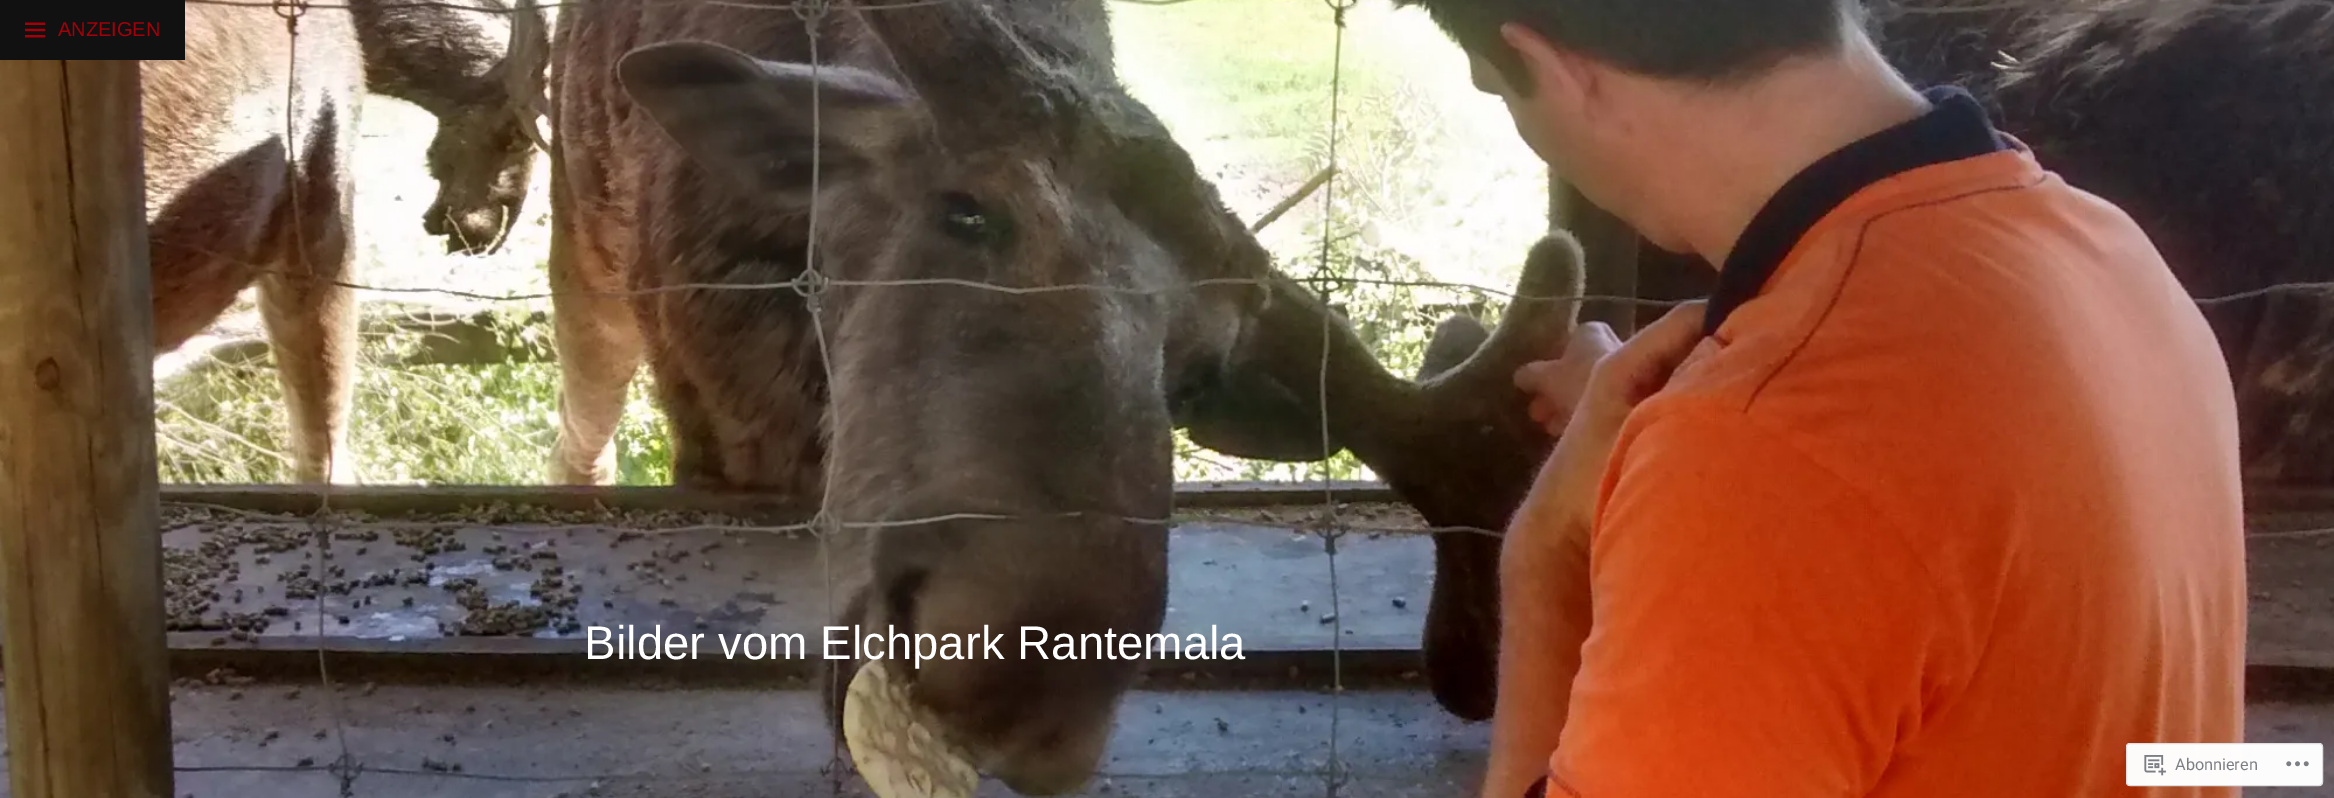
%!PS-Adobe-3.0
%%BoundingBox: 0 0 2334 798
%%LanguageLevel: 3
%%Pages: 1
%%EndComments
%%BeginProlog
/setink { dup -16 bitshift 255 div exch dup -8 bitshift 255 and 255 div exch 255 and 255 div setrgbcolor } def
/usefont { [ exch dup neg 0 0 3 -1 roll 0 0 ] selectfont } def
/setalpha { dup .setfillconstantalpha .setstrokeconstantalpha } def
/rrect { 5 dict begin { /r /h /w /y /x } { exch def } forall
  x r add y moveto x w add y 2 copy h add r arct x w add y h add x 1 index r arct
  x y h add x y r arct x y 2 copy exch w add exch r arct closepath end } def
/drawimage { 5 dict begin { /h /w /y /x /name } { exch def } forall
  gsave x y translate w h scale
  w h 8 [w 0 0 h 0 0] name (r) file false 3 colorimage grestore end } def
%%EndProlog
%%BeginSetup
<< /PageSize [2334 798] /PageUsesTransparency true >> setpagedevice
%%EndSetup
%%Page: 1 1
0 .pushpdf14devicefilter
0 798 translate 1 -1 scale
4 setmiterlimit
16#FFFFFF setink
0 0 2334 798 rectfill
(img2.raw) 0 0 2334 798 drawimage
16#111111 setink
0 0 185 60 rectfill
(img1.raw) 25 22 20 16 drawimage
/Arimo-Regular 20 usefont
16#A3000A setink
58 36 moveto (ANZEIGEN) show
/Arimo-Regular 47.25 usefont
16#FFFFFF setink
584 659 moveto (Bilder vom Elchpark Rantemala) show
0.98 setalpha
2126 743 197 43 4 rrect fill
16#DCDCDE setink
2126.5 743.5 196 42 3.5 rrect stroke
1 setalpha
(img3.raw) 2144 755 22 21 drawimage
/Roboto-Regular 16.25 usefont
16#7B7F84 setink
2175 770 moveto (Abonnieren) show
(img4.raw) 2286 761 23 6 drawimage
.poppdf14devicefilter showpage
%%EOF
